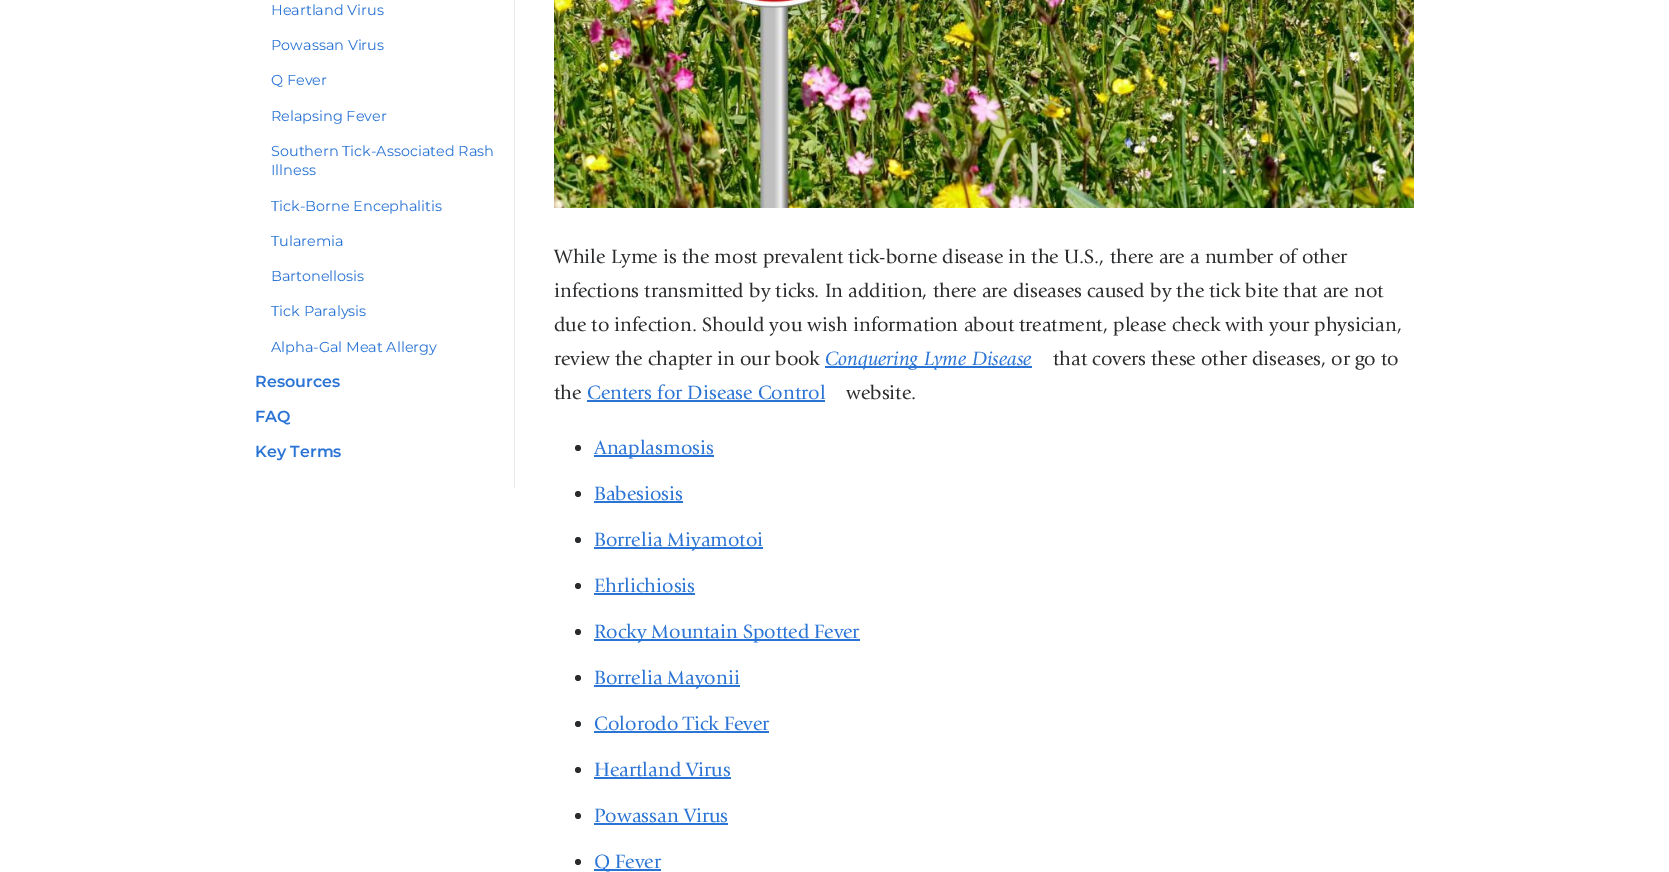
%!PS-Adobe-3.0
%%BoundingBox: 0 0 1669 872
%%LanguageLevel: 3
%%Pages: 1
%%EndComments
%%BeginProlog
/setink { dup -16 bitshift 255 div exch dup -8 bitshift 255 and 255 div exch 255 and 255 div setrgbcolor } def
/usefont { [ exch dup neg 0 0 3 -1 roll 0 0 ] selectfont } def
/disc { newpath 0 360 arc closepath } def
/drawimage { 5 dict begin { /h /w /y /x /name } { exch def } forall
  gsave x y translate w h scale
  w h 8 [w 0 0 h 0 0] name (r) file false 3 colorimage grestore end } def
%%EndProlog
%%BeginSetup
<< /PageSize [1669 872] >> setpagedevice
%%EndSetup
%%Page: 1 1
0 872 translate 1 -1 scale
4 setmiterlimit
16#FFFFFF setink
0 0 1669 872 rectfill
16#E7E8E9 setink
514 0 1 488 rectfill
/Montserrat-Regular 14.4 usefont
16#2A74D5 setink
[
    [(Heartland Virus) 271 15]
    [(Powassan Virus) 271 50]
    [(Q Fever) 271 85]
    [(Relapsing Fever) 271 121]
    [(Southern Tick-Associated Rash) 271 156]
    [(Illness) 271 175]
    [(Tick-Borne Encephalitis) 271 211]
    [(Tularemia) 271 246]
    [(Bartonellosis) 271 281]
    [(Tick Paralysis) 271 316]
    [(Alpha-Gal Meat Allergy) 271 352]
] { aload pop moveto show } forall
/Montserrat-SemiBold 16 usefont
[
    [(Resources) 255 387]
    [(FAQ) 255 422]
    [(Key Terms) 255 457]
] { aload pop moveto show } forall
(img1.raw) 554 0 860 208 drawimage
/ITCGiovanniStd-Regular 20 usefont
16#2A2B2D setink
[
    [(While Lyme is the most prevalent tick-borne disease in the U.S., there are a number of other) 554 263]
    [(infections transmitted by ticks. In addition, there are diseases caused by the tick bite that are not) 554 297]
    [(due to infection. Should you wish information about treatment, please check with your physician,) 554 331]
    [(review the chapter in our book) 554 365]
] { aload pop moveto show } forall
16#2A74D5 setink
825 366 207 2 rectfill
/ITCGiovanniStd-Italic 20 usefont
825 365 moveto (Conquering Lyme Disease) show
/ITCGiovanniStd-Regular 20 usefont
16#2A2B2D setink
1053 365 moveto (that covers these other diseases, or go to) show
554 399 moveto (the) show
16#2A74D5 setink
587 399 moveto (Centers for Disease Control) show
587 400 238 2 rectfill
16#2A2B2D setink
846 399 moveto (website.) show
578 448 3 disc fill
16#2A74D5 setink
594 455 120 2 rectfill
594 454 moveto (Anaplasmosis) show
16#2A2B2D setink
578 494 3 disc fill
16#2A74D5 setink
594 500 moveto (Babesiosis) show
594 501 89 2 rectfill
16#2A2B2D setink
578 540 3 disc fill
16#2A74D5 setink
594 547 169 2 rectfill
594 546 moveto (Borrelia Miyamotoi) show
16#2A2B2D setink
578 586 3 disc fill
16#2A74D5 setink
594 592 moveto (Ehrlichiosis) show
594 593 101 2 rectfill
16#2A2B2D setink
578 632 3 disc fill
16#2A74D5 setink
594 639 266 2 rectfill
594 638 moveto (Rocky Mountain Spotted Fever) show
16#2A2B2D setink
578 678 3 disc fill
16#2A74D5 setink
594 685 146 2 rectfill
594 684 moveto (Borrelia Mayonii) show
16#2A2B2D setink
578 724 3 disc fill
16#2A74D5 setink
594 730 moveto (Colorodo Tick Fever) show
594 731 175 2 rectfill
16#2A2B2D setink
578 770 3 disc fill
16#2A74D5 setink
594 776 moveto (Heartland Virus) show
594 777 137 2 rectfill
16#2A2B2D setink
578 816 3 disc fill
16#2A74D5 setink
594 822 moveto (Powassan Virus) show
594 823 134 2 rectfill
16#2A2B2D setink
578 862 3 disc fill
16#2A74D5 setink
594 869 67 2 rectfill
594 868 moveto (Q Fever) show
showpage
%%EOF
